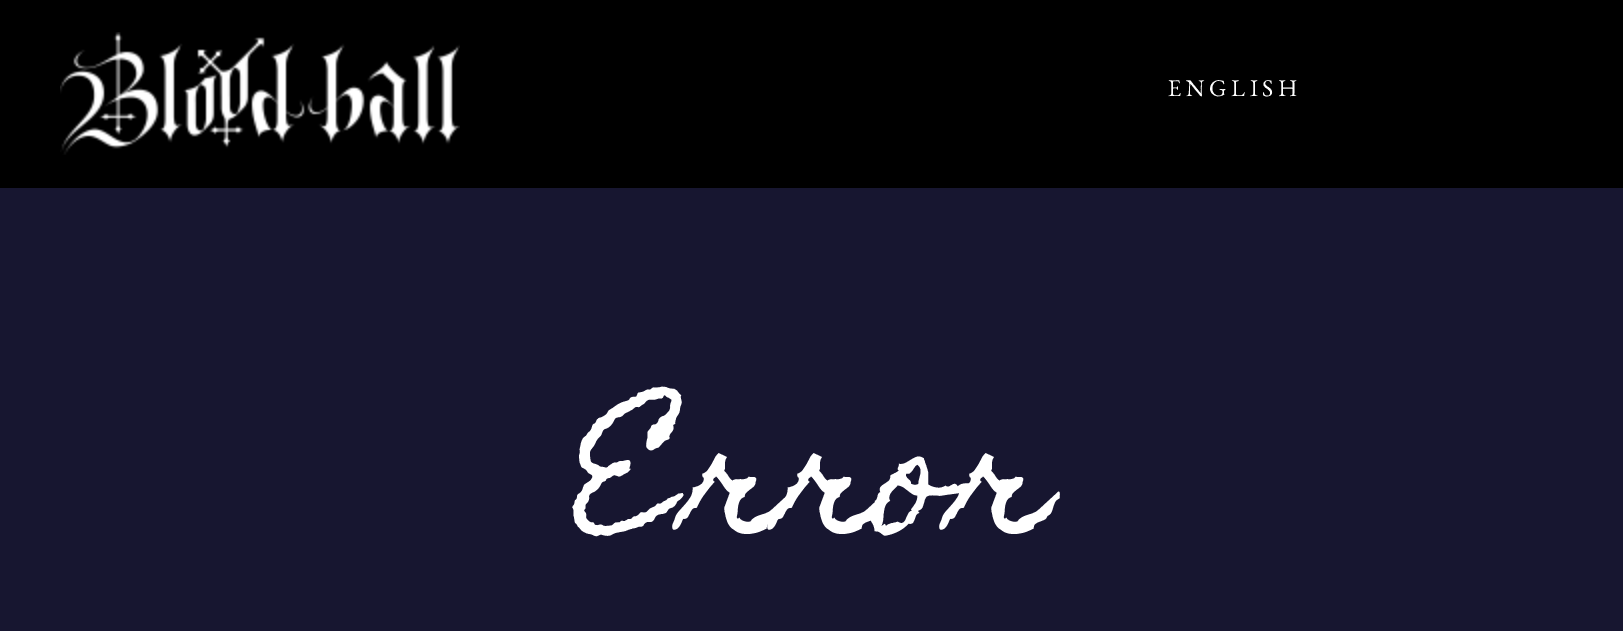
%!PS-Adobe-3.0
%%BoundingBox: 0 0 1623 631
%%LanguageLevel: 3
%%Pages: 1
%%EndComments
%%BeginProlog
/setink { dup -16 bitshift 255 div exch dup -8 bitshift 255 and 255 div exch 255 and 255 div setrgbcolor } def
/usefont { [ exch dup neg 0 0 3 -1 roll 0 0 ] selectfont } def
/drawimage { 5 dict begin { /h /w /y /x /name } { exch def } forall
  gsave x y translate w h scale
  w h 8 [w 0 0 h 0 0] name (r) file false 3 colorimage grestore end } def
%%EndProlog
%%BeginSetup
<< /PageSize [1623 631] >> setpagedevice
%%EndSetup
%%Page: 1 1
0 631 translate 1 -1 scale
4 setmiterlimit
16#000000 setink
0 0 1623 631 rectfill
(img1.raw) 60 32 400 123 drawimage
/Benne-Regular 24 usefont
16#FFFFFF setink
1168 96 moveto 4.75 0 (ENGLISH) ashow
16#171630 setink
0 188 1623 443 rectfill
/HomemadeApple-Regular 154 usefont
16#FFFFFF setink
577 528 moveto -5 0 (Error) ashow
showpage
%%EOF
